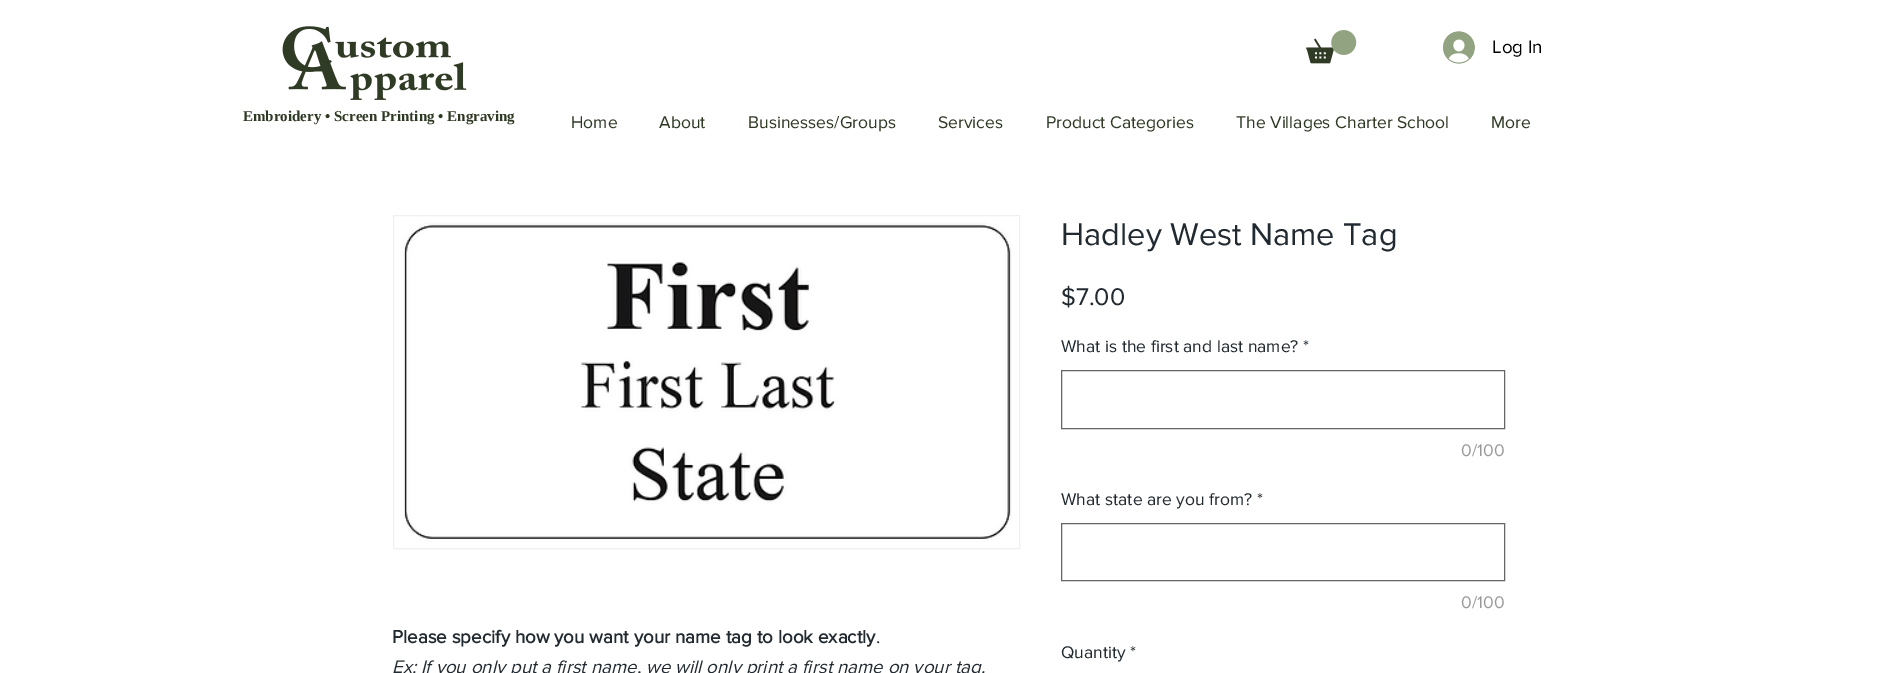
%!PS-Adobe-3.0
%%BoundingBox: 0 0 1896 673
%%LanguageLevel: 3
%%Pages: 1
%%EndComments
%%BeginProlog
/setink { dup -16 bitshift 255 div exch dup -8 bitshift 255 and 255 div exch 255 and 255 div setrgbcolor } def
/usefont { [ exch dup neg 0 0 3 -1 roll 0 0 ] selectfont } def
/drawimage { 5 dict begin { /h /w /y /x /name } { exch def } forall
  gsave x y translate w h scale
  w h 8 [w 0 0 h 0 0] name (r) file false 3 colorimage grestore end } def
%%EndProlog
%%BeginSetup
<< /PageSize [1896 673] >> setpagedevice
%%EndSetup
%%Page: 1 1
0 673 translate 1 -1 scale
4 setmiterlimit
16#FFFFFF setink
0 0 1896 673 rectfill
(img1.raw) 1306 30 51 34 drawimage
(img2.raw) 1443 31 32 33 drawimage
/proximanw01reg-Regular 18.75 usefont
16#000000 setink
1492 53 moveto (Log In) show
(img3.raw) 282 26 185 74 drawimage
/LiberationSerif-Bold 15 usefont
16#2E3924 setink
243 121 moveto (Embroidery • Screen Printing • Engraving) show
/proximanw01reg-Regular 17.5 usefont
[
    [(Home) 571 128]
    [(About) 659 128]
    [(Businesses/Groups) 748 128]
    [(Services) 938 128]
    [(Product Categories) 1046 128]
    [(The Villages Charter School) 1236 128]
    [(More) 1491 128]
] { aload pop moveto show } forall
16#F0F0F0 setink
393.5 215.5 626 333 rectstroke
(img4.raw) 403 222 609 320 drawimage
/proximanw01reg-Bold 18.75 usefont
16#222A31 setink
392 643 moveto (Please specify how you want your name tag to look exactly) show
/proximanw01reg-Regular 18.75 usefont
876 643 moveto (.) show
/proximanw01reg-Italic 18.75 usefont
392 673 moveto (Ex: If you only put a first name, we will only print a first name on your tag.) show
/proximanw01reg-Regular 32.5 usefont
1061 245 moveto (Hadley West Name Tag) show
/proximanw01reg-Regular 25 usefont
1061 305 moveto ($7.00) show
/proximanw01reg-Regular 17.5 usefont
1061 352 moveto (What is the first and last name?) show
1303 352 moveto (*) show
16#666666 setink
1061.5 370.5 443 58 rectstroke
16#999997 setink
1461 456 moveto (0/100) show
16#222A31 setink
1061 505 moveto (What state are you from?) show
1257 505 moveto (*) show
16#666666 setink
1061.5 523.5 443 57 rectstroke
16#999997 setink
1461 608 moveto (0/100) show
16#222A31 setink
1061 658 moveto (Quantity) show
1130 658 moveto (*) show
showpage
%%EOF
